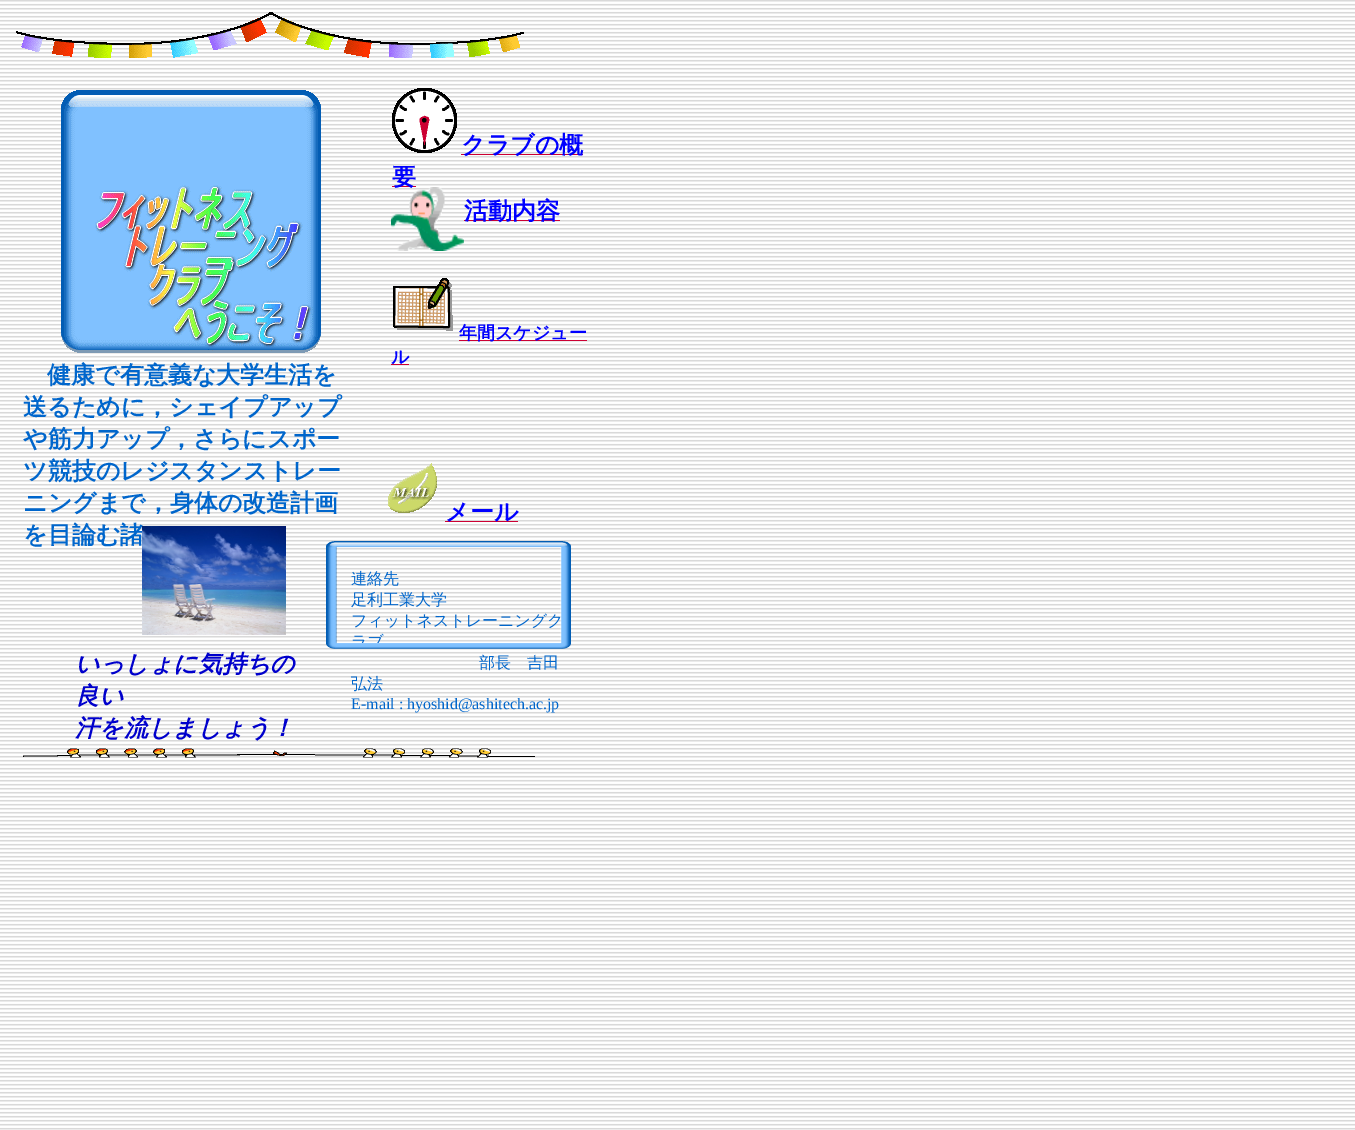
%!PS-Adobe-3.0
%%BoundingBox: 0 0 1355 1130
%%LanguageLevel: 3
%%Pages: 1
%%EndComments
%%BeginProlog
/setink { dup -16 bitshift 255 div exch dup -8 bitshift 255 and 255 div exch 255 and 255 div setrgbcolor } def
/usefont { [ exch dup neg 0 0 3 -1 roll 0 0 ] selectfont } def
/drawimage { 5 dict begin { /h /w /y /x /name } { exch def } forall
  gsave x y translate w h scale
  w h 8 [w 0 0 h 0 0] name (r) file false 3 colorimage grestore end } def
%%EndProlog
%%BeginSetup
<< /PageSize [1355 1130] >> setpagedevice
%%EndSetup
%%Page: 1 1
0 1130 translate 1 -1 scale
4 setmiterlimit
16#FFFFFF setink
0 0 1355 1130 rectfill
(img1.raw) 0 0 1355 1130 drawimage
(img2.raw) 16 12 508 46 drawimage
(img3.raw) 61 90 260 263 drawimage
(img4.raw) 392 88 65 65 drawimage
16#CC0033 setink
461 154 122 1 rectfill
/WenQuanYiZenHei-Bold 24 usefont
16#0000FF setink
461 153 moveto (クラブの概) show
16#CC0033 setink
392 186 24 1 rectfill
16#0000FF setink
392 185 moveto (要) show
(img5.raw) 391 187 73 64 drawimage
16#CC0033 setink
464 220 96 1 rectfill
16#0000FF setink
464 219 moveto (活動内容) show
(img6.raw) 393 278 60 53 drawimage
16#CC0033 setink
459 340 128 1 rectfill
/WenQuanYiZenHei-Bold 18 usefont
16#0000FF setink
459 339 moveto (年間スケジュー) show
16#CC0033 setink
391 364 18 1 rectfill
16#0000FF setink
391 363 moveto (ル) show
/WenQuanYiZenHei-Bold 24 usefont
16#0066CC setink
[
    [(健康で有意義な大学生活を) 47 383]
    [(送るために，シェイプアップ) 23 415]
    [(や筋力アップ，さらにスポー) 23 447]
    [(ツ競技のレジスタンストレー) 23 479]
    [(ニングまで，身体の改造計画) 23 511]
    [(を目論む諸) 23 543]
] { aload pop moveto show } forall
(img7.raw) 388 463 49 50 drawimage
16#CC0033 setink
445 521 73 1 rectfill
16#0000FF setink
445 520 moveto (メール) show
(img8.raw) 142 526 144 109 drawimage
/WenQuanYiZenHei-Medium 16 usefont
16#0066CC setink
[
    [(連絡先) 351 584]
    [(足利工業大学) 351 605]
    [(フィットネストレーニングク) 351 626]
    [(ラブ) 351 647]
] { aload pop moveto show } forall
(img9.raw) 326 541 245 108 drawimage
/WenQuanYiZenHei-BoldItalic 24 usefont
16#0000CC setink
[
    [(いっしょに気持ちの) 75 672]
    [(良い) 75 704]
    [(汗を流しましょう！) 75 736]
] { aload pop moveto show } forall
/WenQuanYiZenHei-Medium 16 usefont
16#0066CC setink
479 668 moveto (部長　吉田) show
351 689 moveto (弘法) show
/LiberationSerif-Regular 16 usefont
351 709 moveto (E-mail : hyoshid@ashitech.ac.jp) show
(img10.raw) 23 748 512 10 drawimage
showpage
%%EOF
